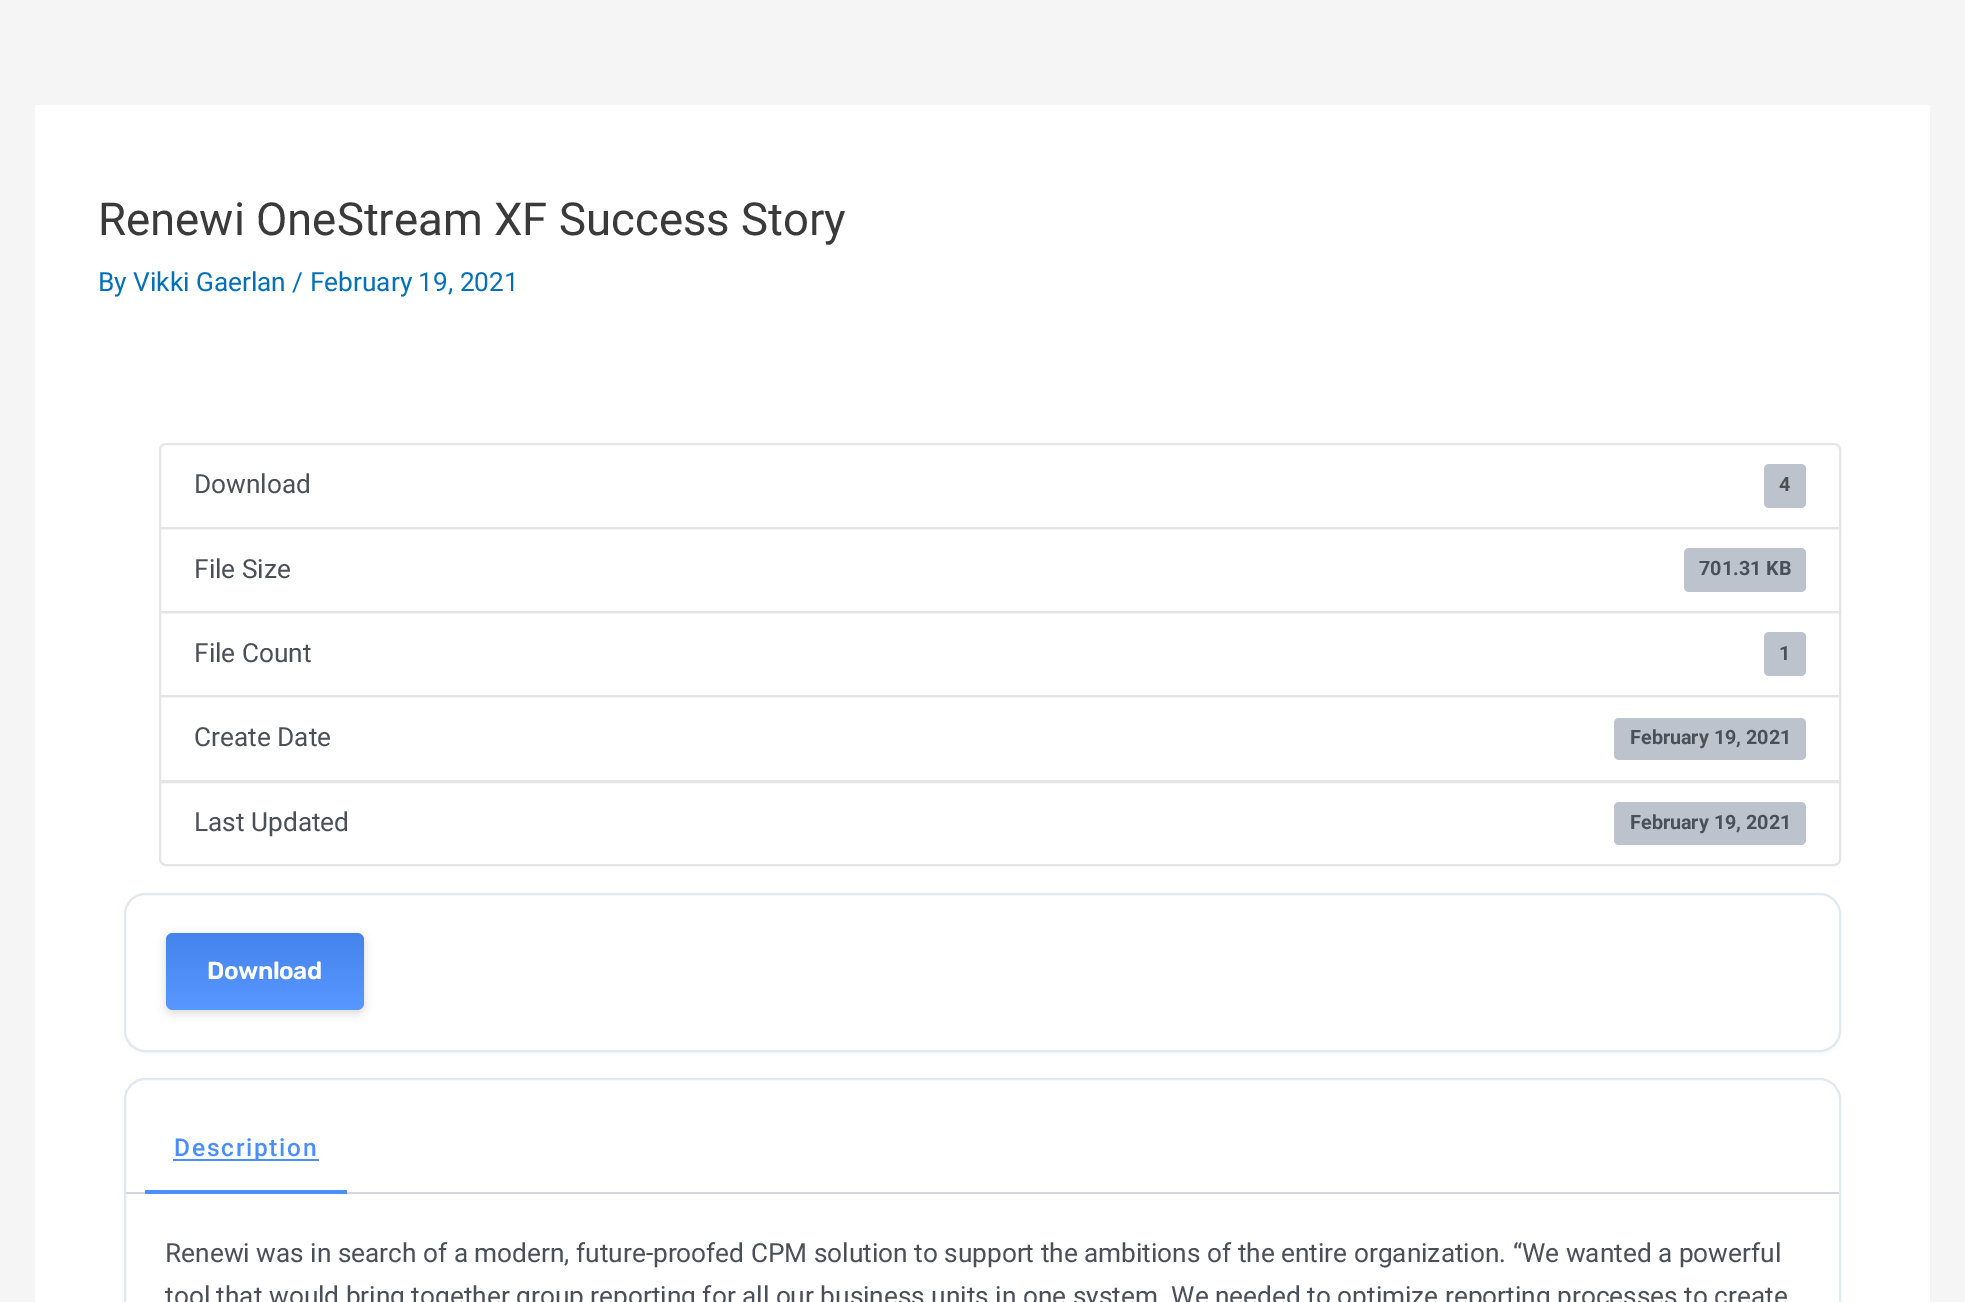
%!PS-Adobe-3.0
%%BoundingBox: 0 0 1965 1302
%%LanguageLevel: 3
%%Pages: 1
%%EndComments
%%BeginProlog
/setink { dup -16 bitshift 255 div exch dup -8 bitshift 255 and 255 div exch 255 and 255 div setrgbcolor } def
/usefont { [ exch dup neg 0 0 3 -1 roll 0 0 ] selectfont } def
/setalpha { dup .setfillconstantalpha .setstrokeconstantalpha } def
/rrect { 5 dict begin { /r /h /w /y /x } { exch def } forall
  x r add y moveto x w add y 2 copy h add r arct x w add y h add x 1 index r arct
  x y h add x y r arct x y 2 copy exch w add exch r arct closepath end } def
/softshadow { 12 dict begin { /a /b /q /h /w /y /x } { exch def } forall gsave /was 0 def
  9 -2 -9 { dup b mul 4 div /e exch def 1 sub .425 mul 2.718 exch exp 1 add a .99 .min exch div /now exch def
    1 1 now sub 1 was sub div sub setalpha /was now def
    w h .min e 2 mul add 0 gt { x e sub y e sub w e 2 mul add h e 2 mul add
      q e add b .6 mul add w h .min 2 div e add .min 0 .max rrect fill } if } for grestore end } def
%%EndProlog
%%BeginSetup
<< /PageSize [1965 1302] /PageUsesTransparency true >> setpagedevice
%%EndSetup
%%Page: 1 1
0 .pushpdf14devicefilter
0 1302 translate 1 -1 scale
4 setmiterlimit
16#F5F5F5 setink
0 0 1965 1302 rectfill
16#FFFFFF setink
35 105 1895 1197 rectfill
/Roboto-Regular 45.5 usefont
16#3A3A3A setink
98 235 moveto (Renewi OneStream XF Success Story) show
/Roboto-Regular 26.25 usefont
16#0170B9 setink
98 291 moveto (By Vikki Gaerlan / February 19, 2021) show
16#E5E5E5 setink
2 setlinewidth
166 444 moveto 1834 444 lineto 1837.5 444 1840 446.5 1840 450 curveto 1840 528 lineto 160 528 lineto 160 450 lineto 160 446.5 162.5 444 166 444 curveto closepath stroke
16#4B4F58 setink
194 493 moveto (Download) show
16#BCC3CC setink
1764 464 42 44 5 rrect fill
/Roboto-Bold 19.75 usefont
16#4B4F58 setink
1779 491 moveto (4) show
16#E5E5E5 setink
160 528 1680 84 rectstroke
/Roboto-Regular 26.25 usefont
16#4B4F58 setink
194 578 moveto (File Size) show
16#BCC3CC setink
1684 548 122 44 5 rrect fill
/Roboto-Bold 19.75 usefont
16#4B4F58 setink
1699 575 moveto (701.31 KB) show
16#E5E5E5 setink
160 612 1680 84 rectstroke
/Roboto-Regular 26.25 usefont
16#4B4F58 setink
194 662 moveto (File Count) show
16#BCC3CC setink
1764 632 42 44 5 rrect fill
/Roboto-Bold 19.75 usefont
16#4B4F58 setink
1779 660 moveto (1) show
16#E5E5E5 setink
160 696 1680 85 rectstroke
/Roboto-Regular 26.25 usefont
16#4B4F58 setink
194 746 moveto (Create Date) show
16#BCC3CC setink
1614 718 192 42 5 rrect fill
/Roboto-Bold 19.75 usefont
16#4B4F58 setink
1630 744 moveto (February 19, 2021) show
16#FFFFFF setink
160 782 moveto 1840 782 lineto 1840 859 lineto 1840 862.5 1837.5 865 1834 865 curveto 166 865 lineto 162.5 865 160 862.5 160 859 curveto closepath gsave fill grestore
16#E5E5E5 setink
stroke
/Roboto-Regular 26.25 usefont
16#4B4F58 setink
194 831 moveto (Last Updated) show
16#BCC3CC setink
1614 802 192 43 5 rrect fill
/Roboto-Bold 19.75 usefont
16#4B4F58 setink
1630 829 moveto (February 19, 2021) show
16#000000 setink
124 894 1717 160 21 2.5 0.04 softshadow
16#FFFFFF setink
125 894 1715 157 20 rrect gsave fill grestore
16#E2E8F0 setink
stroke
16#000000 setink
166 936 198 77 7 5 0.15 softshadow
16#4A8EFF setink
166 933 198 77 7 rrect fill
0.08 setalpha
gsave 166 933 198 77 7 rrect clip newpath
<< /ShadingType 2 /ColorSpace /DeviceRGB /Coords [265 933 265 1010] /Extend [true true] /Function << /FunctionType 2 /Domain [0 1] /C0 [0 0 0] /C1 [1 1 1] /N 1 >> >> shfill grestore
/Rubik-SemiBold 24.5 usefont
1 setalpha
16#FFFFFF setink
207 979 moveto -0.5 0 (Download) ashow
16#E2E8F0 setink
125 1079 1715 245 20 rrect stroke
16#D2D7DE setink
126 1192 1713 2 rectfill
16#4A8EFF setink
173 1159 146 2 rectfill
/Roboto-Medium 24.5 usefont
174 1156 moveto 1.75 0 (Description) ashow
145 1190 202 4 rectfill
/Roboto-Regular 26.25 usefont
16#4B4F58 setink
165 1262 moveto (Renewi was in search of a modern, future-proofed CPM solution to support the ambitions of the entire organization. “We wanted a powerful) show
165 1305 moveto (tool that would bring together group reporting for all our business units in one system. We needed to optimize reporting processes to create) show
.poppdf14devicefilter showpage
%%EOF
